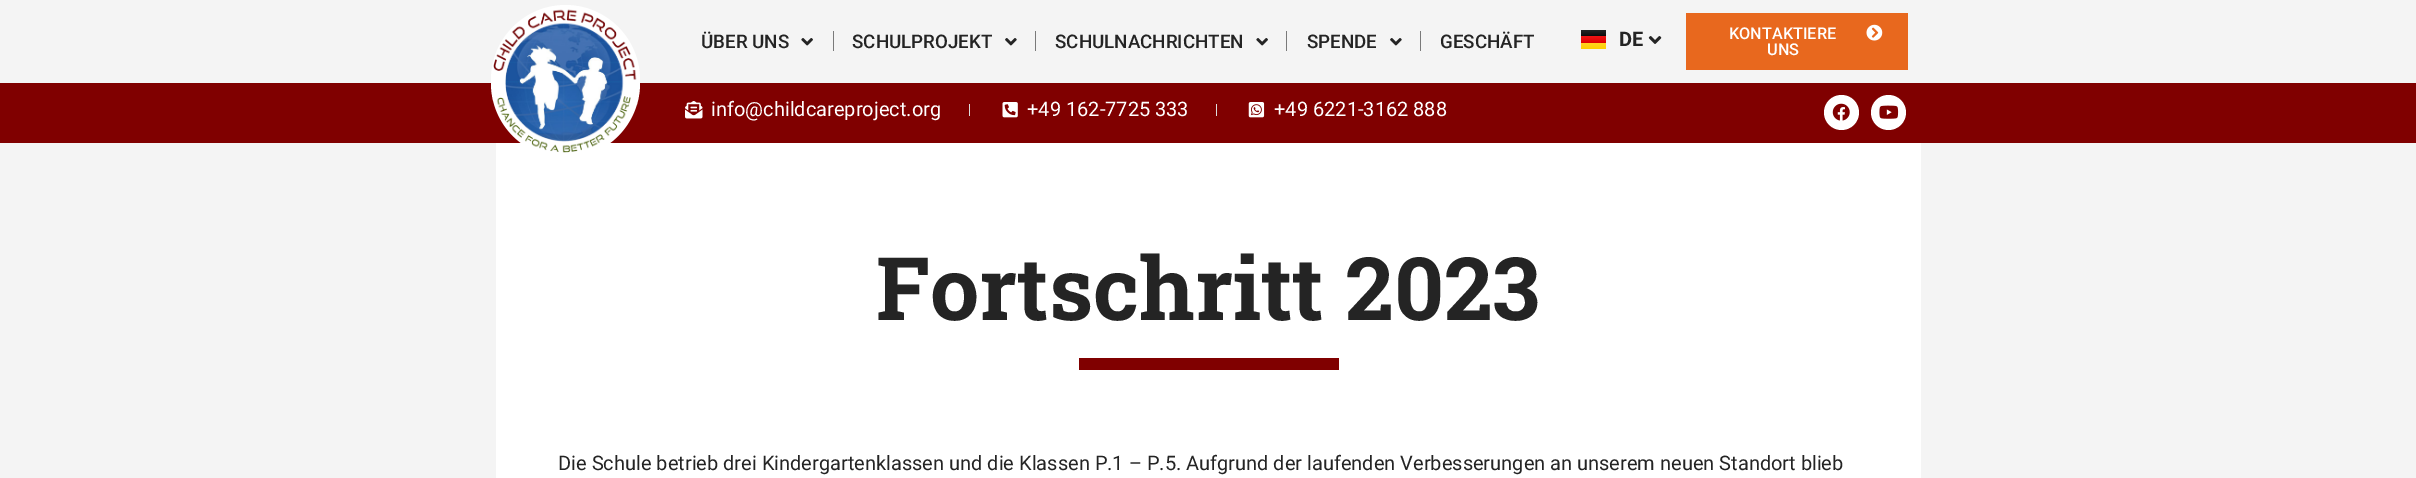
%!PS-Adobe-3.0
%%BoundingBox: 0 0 2416 478
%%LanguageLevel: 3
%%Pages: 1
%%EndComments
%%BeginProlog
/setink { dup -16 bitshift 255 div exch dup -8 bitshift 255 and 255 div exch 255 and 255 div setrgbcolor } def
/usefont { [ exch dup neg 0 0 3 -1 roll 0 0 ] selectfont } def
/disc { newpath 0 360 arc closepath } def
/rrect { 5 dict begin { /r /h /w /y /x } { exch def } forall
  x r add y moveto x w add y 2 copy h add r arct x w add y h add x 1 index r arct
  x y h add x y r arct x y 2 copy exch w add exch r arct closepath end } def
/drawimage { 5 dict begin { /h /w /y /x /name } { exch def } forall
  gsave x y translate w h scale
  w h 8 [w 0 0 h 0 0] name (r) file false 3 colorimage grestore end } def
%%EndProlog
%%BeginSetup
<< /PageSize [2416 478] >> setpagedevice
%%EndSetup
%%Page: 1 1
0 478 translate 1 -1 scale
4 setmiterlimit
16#F4F4F4 setink
0 0 2416 478 rectfill
16#800000 setink
0 83 2416 60 rectfill
16#FFFFFF setink
496 143 1425 335 rectfill
491 5 149 153 74.5 rrect fill
(img1.raw) 493 9 144 144 drawimage
/Roboto-Medium 18.75 usefont
16#242424 setink
701 48 moveto (ÜBER UNS) show
(img2.raw) 801 38 12 8 drawimage
16#7A7A7A setink
833 31 1 20 rectfill
16#242424 setink
852 48 moveto (SCHULPROJEKT) show
(img3.raw) 1005 38 12 8 drawimage
16#7A7A7A setink
1035 31 1 20 rectfill
16#242424 setink
1055 48 moveto (SCHULNACHRICHTEN) show
(img2.raw) 1256 38 12 8 drawimage
16#7A7A7A setink
1286 31 1 20 rectfill
16#242424 setink
1307 48 moveto (SPENDE) show
(img3.raw) 1390 38 12 8 drawimage
16#7A7A7A setink
1420 31 1 20 rectfill
16#242424 setink
1440 48 moveto (GESCHÄFT) show
gsave 1581 30 moveto 1606 30 lineto 1606 36 lineto 1581 36 lineto closepath clip newpath
<< /ShadingType 2 /ColorSpace /DeviceRGB /Coords [1594 30 1594 36] /Extend [true true] /Function << /FunctionType 2 /Domain [0 1] /C0 [0.149 0.149 0.149] /C1 [0.051 0.051 0.051] /N 1 >> >> shfill grestore
gsave 1581 36 moveto 1606 36 lineto 1606 43 lineto 1581 43 lineto closepath clip newpath
<< /ShadingType 2 /ColorSpace /DeviceRGB /Coords [1594 36 1594 43] /Extend [true true] /Function << /FunctionType 2 /Domain [0 1] /C0 [0.941 0.082 0.082] /C1 [0.871 0 0] /N 1 >> >> shfill grestore
gsave 1581 43 moveto 1606 43 lineto 1606 49 lineto 1581 49 lineto closepath clip newpath
<< /ShadingType 2 /ColorSpace /DeviceRGB /Coords [1594 43 1594 49] /Extend [true true] /Function << /FunctionType 2 /Domain [0 1] /C0 [1 0.835 0.129] /C1 [1 0.812 0] /N 1 >> >> shfill grestore
/Roboto-Bold 20 usefont
1619 46 moveto (DE) show
(img4.raw) 1648 36 14 8 drawimage
16#E8681E setink
1686 13 222 57 rectfill
/Roboto-Medium 16.25 usefont
16#FFFFFF setink
1729 39 moveto (KONTAKTIERE) show
1767 55 moveto (UNS) show
(img5.raw) 1866 24 17 17 drawimage
(img6.raw) 685 101 18 18 drawimage
/Roboto-Regular 20 usefont
711 116 moveto (info@childcareproject.org) show
16#DDDDDD setink
969 104 1 12 rectfill
(img7.raw) 1002 102 16 16 drawimage
16#FFFFFF setink
1027 116 moveto (+49 162-7725 333) show
16#DDDDDD setink
1216 104 1 12 rectfill
(img8.raw) 1248 102 17 16 drawimage
16#FFFFFF setink
1274 116 moveto (+49 6221-3162 888) show
1841.5 112.5 17.5 disc fill
(img9.raw) 1832 103 18 18 drawimage
1888.5 112.5 17.5 disc fill
(img10.raw) 1879 105 20 14 drawimage
/RobotoSlab-Bold 87.5 usefont
16#242424 setink
876 320 moveto (Fortschritt 2023) show
16#800000 setink
1079 358 260 12 rectfill
/Roboto-Regular 20 usefont
16#242424 setink
558 470 moveto (Die Schule betrieb drei Kindergartenklassen und die Klassen P.1 – P.5. Aufgrund der laufenden Verbesserungen an unserem neuen Standort blieb) show
showpage
%%EOF
